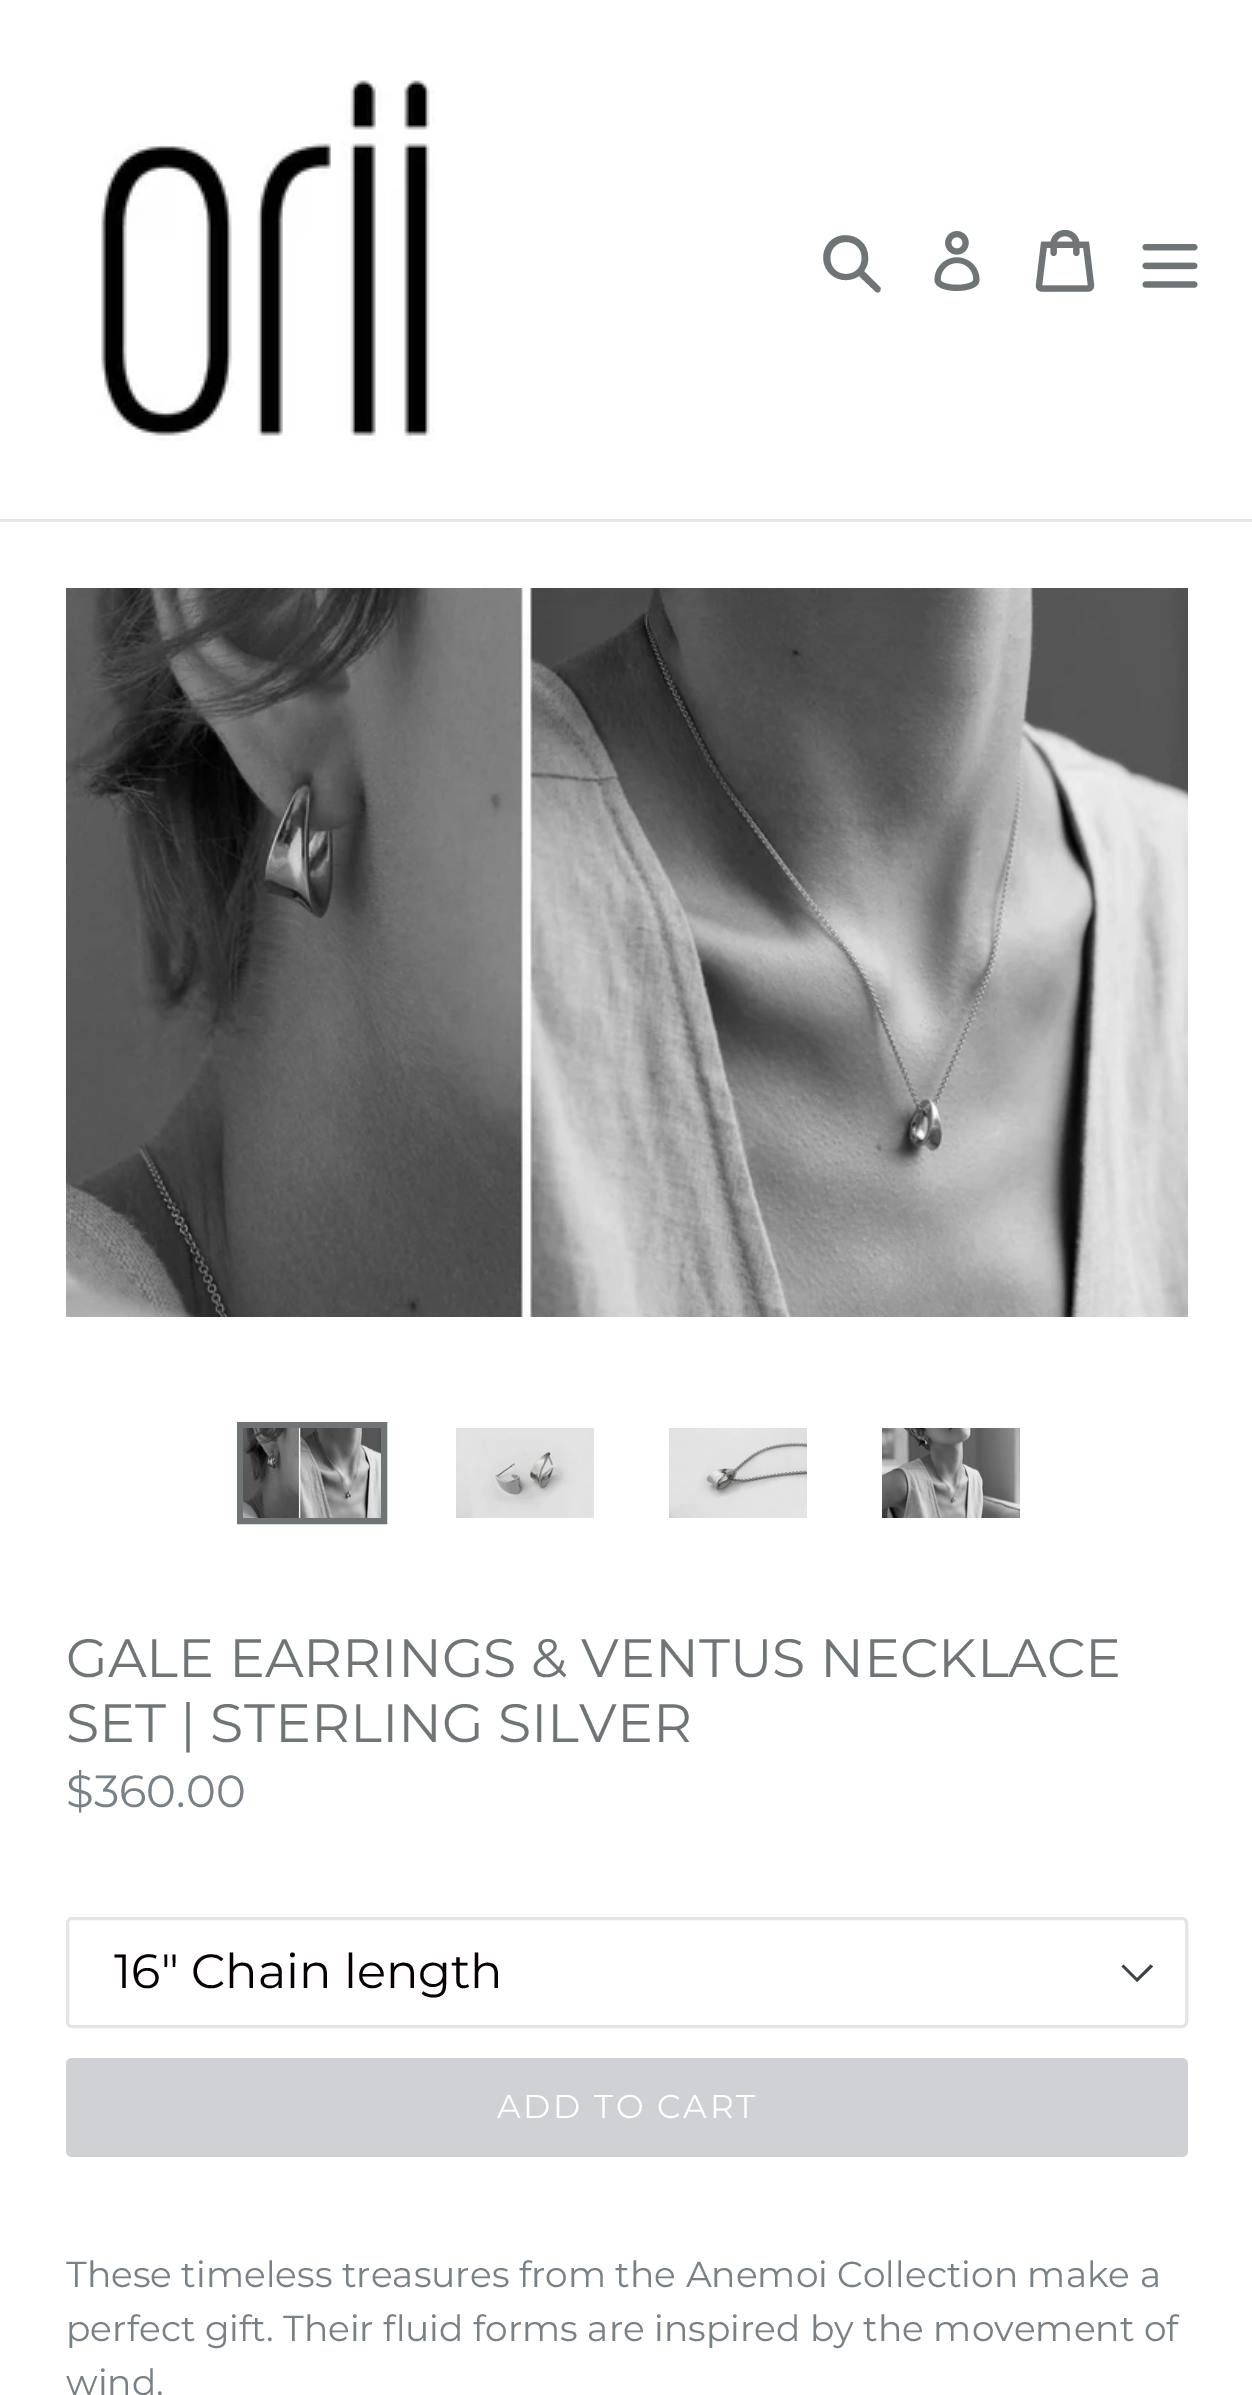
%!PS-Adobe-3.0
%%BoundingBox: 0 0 1252 2395
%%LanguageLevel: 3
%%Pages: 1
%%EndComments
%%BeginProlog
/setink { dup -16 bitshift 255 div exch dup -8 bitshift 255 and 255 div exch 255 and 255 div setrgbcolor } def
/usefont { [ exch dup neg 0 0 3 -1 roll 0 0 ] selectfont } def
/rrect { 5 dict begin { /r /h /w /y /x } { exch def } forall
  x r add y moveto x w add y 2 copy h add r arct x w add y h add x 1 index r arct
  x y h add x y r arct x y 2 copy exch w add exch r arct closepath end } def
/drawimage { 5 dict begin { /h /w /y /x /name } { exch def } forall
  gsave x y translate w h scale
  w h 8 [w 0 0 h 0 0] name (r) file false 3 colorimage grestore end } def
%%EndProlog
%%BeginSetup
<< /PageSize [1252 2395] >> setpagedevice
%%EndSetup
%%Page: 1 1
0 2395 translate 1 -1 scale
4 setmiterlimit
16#FFFFFF setink
0 0 1252 2395 rectfill
16#E4E5E7 setink
0 519 1252 3 rectfill
(img1.raw) 101 80 334 361 drawimage
16#6F7477 setink
880 287 moveto 864 271 lineto 867 267 869 261 868 256 curveto 867 233 834 227 825 249 curveto 822 256 823 264 827 270 curveto 834 281 849 283 859 276 curveto 876 292 lineto 879 294 882 290 880 287 curveto closepath 846 274 moveto 825 274 825 242 846 242 curveto 867 242 867 274 846 274 curveto closepath fill
(img2.raw) 934 231 46 60 drawimage
(img3.raw) 1035 229 60 63 drawimage
(img4.raw) 1142 244 56 44 drawimage
(img5.raw) 66 588 1122 729 drawimage
6 setlinewidth
240 1425 144 96 rectstroke
(img6.raw) 243 1428 138 90 drawimage
(img7.raw) 456 1428 138 90 drawimage
(img8.raw) 669 1428 138 90 drawimage
(img9.raw) 882 1428 138 90 drawimage
/Montserrat-Thin 54 usefont
66 1677 moveto (GALE EARRINGS & VENTUS NECKLACE) show
66 1742 moveto (SET | STERLING SILVER) show
/Montserrat-Thin 45 usefont
16#788188 setink
66 1807 moveto ($360.00) show
16#3D4246 setink
1137 1982 moveto 1121.5 1966.5 lineto 1123.5 1964.5 lineto 1137 1978 lineto 1150.5 1964.5 lineto 1153 1966.5 lineto closepath fill
16#E4E5E7 setink
3 setlinewidth
67.5 1918.5 1119 108 4.5 rrect stroke
/Montserrat-Thin 48 usefont
16#070000 setink
114 1988 moveto (16" Chain length) show
16#D0D1D4 setink
66 2058 1122 99 6 rrect fill
/Montserrat-Thin 33 usefont
16#FFFFFF setink
497 2118 moveto 2.6 0 (ADD TO CART) ashow
/Montserrat-Thin 36 usefont
16#788188 setink
[
    [(These timeless treasures from the Anemoi Collection make a) 66 2287]
    [(perfect gift. Their fluid forms are inspired by the movement of) 66 2341]
    [(wind.) 66 2395]
] { aload pop moveto show } forall
showpage
%%EOF
